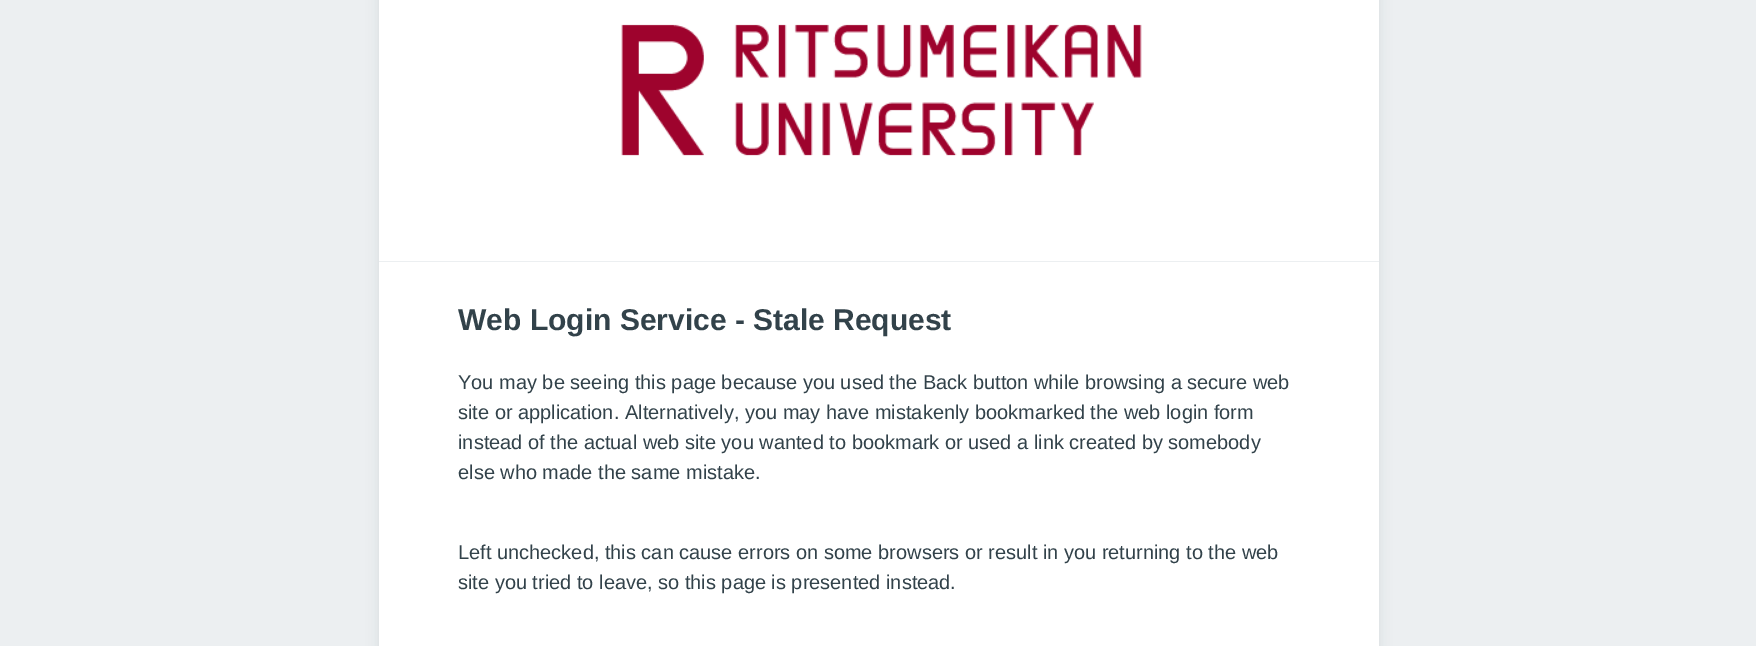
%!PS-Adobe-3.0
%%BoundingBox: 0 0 1756 646
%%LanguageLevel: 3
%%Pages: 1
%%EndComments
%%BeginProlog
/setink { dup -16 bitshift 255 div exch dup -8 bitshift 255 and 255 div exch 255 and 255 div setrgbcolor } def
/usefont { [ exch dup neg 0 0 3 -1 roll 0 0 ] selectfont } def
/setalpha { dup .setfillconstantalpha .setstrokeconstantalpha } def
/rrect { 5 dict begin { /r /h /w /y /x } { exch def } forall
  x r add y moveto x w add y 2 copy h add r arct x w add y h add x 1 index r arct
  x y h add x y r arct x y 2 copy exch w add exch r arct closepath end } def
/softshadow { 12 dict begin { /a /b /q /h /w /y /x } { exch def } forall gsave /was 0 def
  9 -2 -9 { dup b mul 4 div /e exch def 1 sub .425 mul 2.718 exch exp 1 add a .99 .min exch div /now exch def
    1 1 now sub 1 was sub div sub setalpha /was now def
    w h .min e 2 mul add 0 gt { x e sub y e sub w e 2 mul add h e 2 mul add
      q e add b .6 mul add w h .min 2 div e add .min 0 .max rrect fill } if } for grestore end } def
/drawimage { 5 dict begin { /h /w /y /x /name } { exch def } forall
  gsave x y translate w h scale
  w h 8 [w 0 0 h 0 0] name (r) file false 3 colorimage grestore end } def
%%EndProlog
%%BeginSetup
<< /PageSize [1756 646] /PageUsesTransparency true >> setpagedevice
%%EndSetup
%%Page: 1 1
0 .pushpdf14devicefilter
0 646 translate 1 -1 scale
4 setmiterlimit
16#ECEFF1 setink
0 0 1756 646 rectfill
16#263238 setink
379 -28 1000 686 10 6 0.11 softshadow
16#FFFFFF setink
379 0 1000 646 rectfill
16#ECEFF1 setink
379 261 1000 1 rectfill
(img1.raw) 621 24 521 132 drawimage
/LiberationSans-Bold 30 usefont
16#32424A setink
458 330 moveto (Web Login Service - Stale Request) show
/LiberationSans-Regular 20 usefont
[
    [(You may be seeing this page because you used the Back button while browsing a secure web) 458 389]
    [(site or application. Alternatively, you may have mistakenly bookmarked the web login form) 458 419]
    [(instead of the actual web site you wanted to bookmark or used a link created by somebody) 458 449]
    [(else who made the same mistake.) 458 479]
    [(Left unchecked, this can cause errors on some browsers or result in you returning to the web) 458 559]
    [(site you tried to leave, so this page is presented instead.) 458 589]
] { aload pop moveto show } forall
.poppdf14devicefilter showpage
%%EOF
